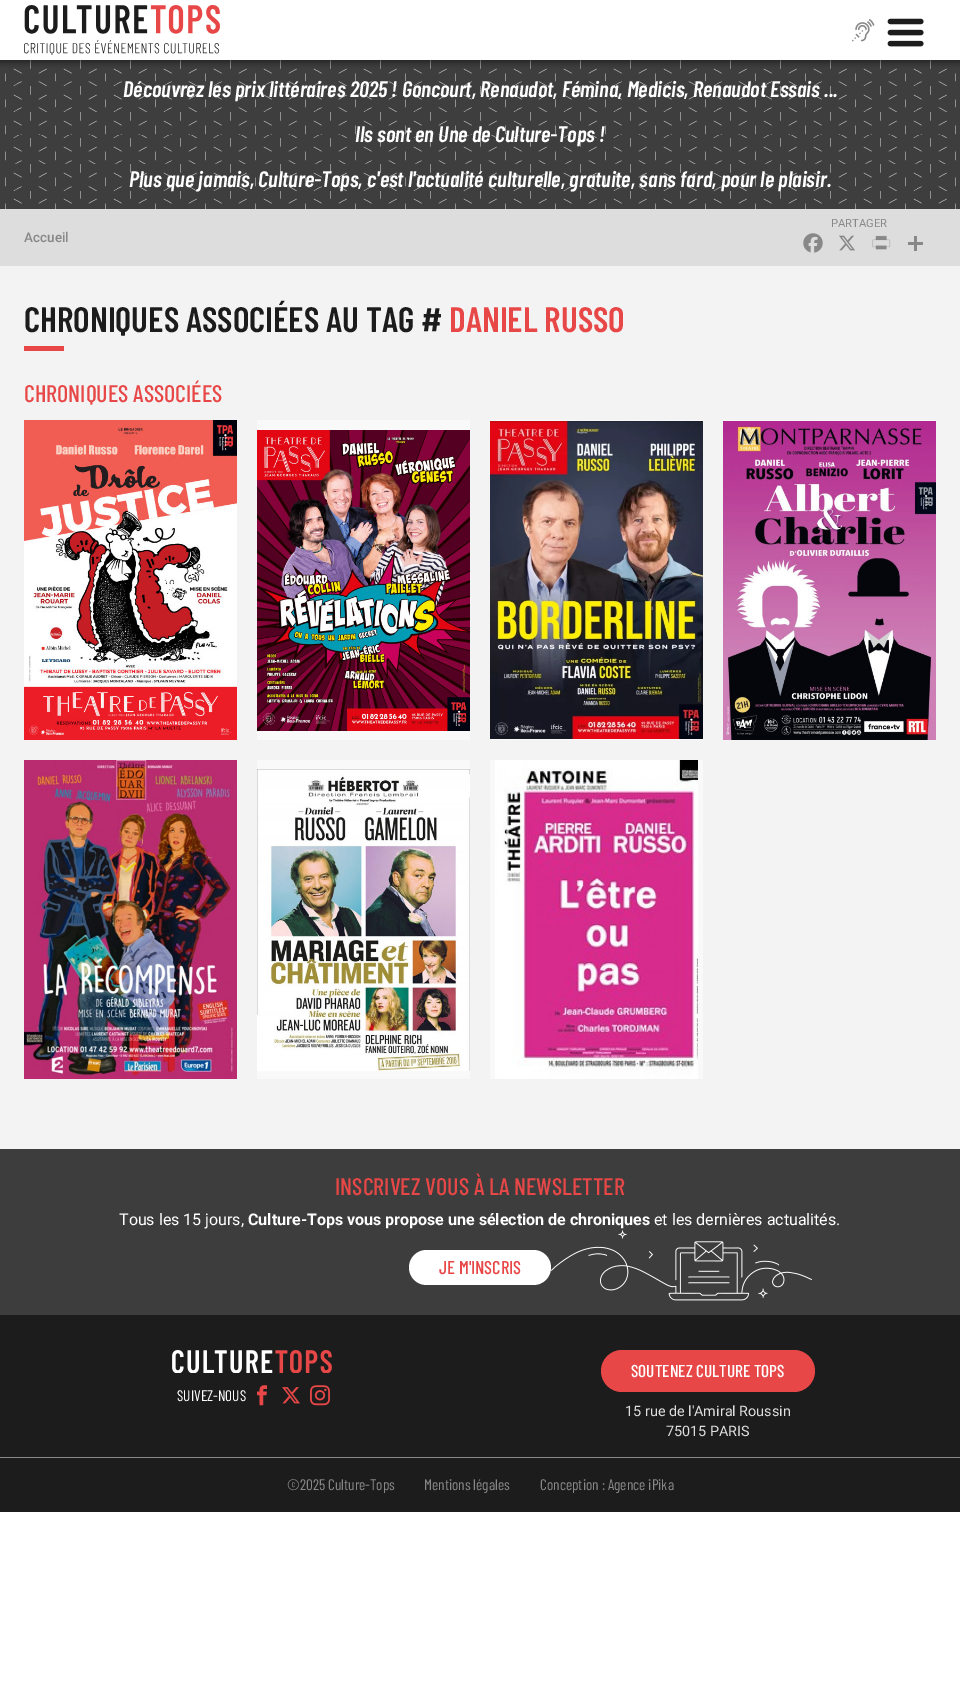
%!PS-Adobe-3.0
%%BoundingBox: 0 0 960 1697
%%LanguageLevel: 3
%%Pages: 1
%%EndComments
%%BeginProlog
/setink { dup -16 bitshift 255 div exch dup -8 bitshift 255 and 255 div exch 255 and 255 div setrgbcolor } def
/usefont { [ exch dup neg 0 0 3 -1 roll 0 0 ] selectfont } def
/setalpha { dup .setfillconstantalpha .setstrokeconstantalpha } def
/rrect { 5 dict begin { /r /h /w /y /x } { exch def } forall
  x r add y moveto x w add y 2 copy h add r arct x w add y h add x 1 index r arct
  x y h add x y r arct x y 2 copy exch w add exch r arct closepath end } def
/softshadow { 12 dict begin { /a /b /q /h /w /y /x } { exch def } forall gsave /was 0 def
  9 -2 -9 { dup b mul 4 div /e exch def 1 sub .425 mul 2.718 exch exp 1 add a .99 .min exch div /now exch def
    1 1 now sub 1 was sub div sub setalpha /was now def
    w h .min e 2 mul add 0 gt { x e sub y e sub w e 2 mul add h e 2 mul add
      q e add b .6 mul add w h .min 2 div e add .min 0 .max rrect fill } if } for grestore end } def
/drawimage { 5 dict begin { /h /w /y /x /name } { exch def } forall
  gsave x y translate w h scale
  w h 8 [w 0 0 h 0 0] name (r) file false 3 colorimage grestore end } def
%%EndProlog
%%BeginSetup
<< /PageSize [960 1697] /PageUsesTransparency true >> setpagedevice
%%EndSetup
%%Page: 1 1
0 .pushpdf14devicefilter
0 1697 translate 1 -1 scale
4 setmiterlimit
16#FFFFFF setink
0 0 960 1697 rectfill
16#3E3E3E setink
0 60 960 149 rectfill
(img4.raw) 5 60 951 149 drawimage
gsave
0 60 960 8 rectclip
16#000000 setink
-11 2 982 60 0 3.5 0.5 softshadow
grestore
(img1.raw) 24 5 196 50 drawimage
(img2.raw) 852 19 23 23 drawimage
(img3.raw) 887 18 37 29 drawimage
/BarlowCondensed-SemiBoldItalic 22.4 usefont
16#FFFFFF setink
[
    [(Découvrez les prix littéraires 2025 ! Goncourt, Renaudot, Fémina, Medicis, Renaudot Essais ...) 123 97]
    [(Ils sont en Une de Culture-Tops !) 355 142]
    [(Plus que jamais, Culture-Tops, c'est l'actualité culturelle, gratuite, sans fard, pour le plaisir.) 129 187]
] { aload pop moveto show } forall
16#DDDDDD setink
0 209 960 57 rectfill
/Roboto-Regular 11.25 usefont
16#888888 setink
831 227 moveto (PARTAGER) show
(img5.raw) 803 233 20 20 drawimage
(img6.raw) 839 235 16 16 drawimage
(img7.raw) 872 235 19 15 drawimage
914 236 3 15 rectfill
908 242 15 3 rectfill
/Roboto-Medium 13.5 usefont
24 242 moveto (Accueil) show
16#F3F3F3 setink
0 266 960 883 rectfill
/BarlowCondensed-SemiBold 35.25 usefont
16#1C1C1C setink
24 332 moveto (CHRONIQUES ASSOCIÉES AU TAG #) show
16#E84747 setink
449 332 moveto (DANIEL RUSSO) show
24 346 40 5 rectfill
/BarlowCondensed-Medium 24 usefont
24 402 moveto (CHRONIQUES ASSOCIÉES) show
(img8.raw) 24 420 213 320 drawimage
16#F9F9F9 setink
257 420 213 320 rectfill
(img9.raw) 257 430 213 301 drawimage
490 420 213 320 rectfill
(img10.raw) 490 421 213 318 drawimage
723 420 213 1 rectfill
(img11.raw) 723 421 213 319 drawimage
(img12.raw) 24 760 213 319 drawimage
257 760 213 319 rectfill
(img13.raw) 257 769 213 302 drawimage
490 760 213 319 rectfill
(img14.raw) 495 760 203 319 drawimage
16#3D3D3D setink
0 1149 960 166 rectfill
16#E84747 setink
335 1195 moveto (INSCRIVEZ VOUS À LA NEWSLETTER) show
/Roboto-Regular 16 usefont
16#FFFFFF setink
119 1225 moveto (Tous les 15 jours,) show
/Roboto-Bold 16 usefont
248 1225 moveto (Culture-Tops vous propose une sélection de chroniques) show
/Roboto-Regular 16 usefont
654 1225 moveto (et les dernières actualités.) show
409 1250 142 35 17.5 rrect fill
/BarlowCondensed-Medium 18.5 usefont
16#E84747 setink
439 1274 moveto (JE M'INSCRIS) show
(img15.raw) 551 1230 261 71 drawimage
16#1C1C1C setink
0 1315 960 197 rectfill
(img16.raw) 172 1350 160 23 drawimage
/BarlowCondensed-Regular 15.25 usefont
16#FFFFFF setink
177 1401 moveto (SUIVEZ-NOUS) show
(img17.raw) 257 1385 10 21 drawimage
(img18.raw) 282 1387 18 17 drawimage
(img19.raw) 310 1385 20 21 drawimage
16#E84747 setink
601 1350 214 42 21 rrect fill
/BarlowCondensed-Medium 17.25 usefont
16#FFFFFF setink
631 1377 moveto (SOUTENEZ CULTURE TOPS) show
/Roboto-Regular 14.4 usefont
16#DFDFDF setink
625 1416 moveto (15 rue de l'Amiral Roussin) show
666 1436 moveto (75015 PARIS) show
16#888888 setink
0 1457 960 1 rectfill
/BarlowCondensed-Regular 15.25 usefont
[
    [(©2025 Culture-Tops) 287 1490]
    [(Mentions légales) 424 1490]
    [(Conception : Agence iPika) 540 1490]
] { aload pop moveto show } forall
.poppdf14devicefilter showpage
%%EOF
